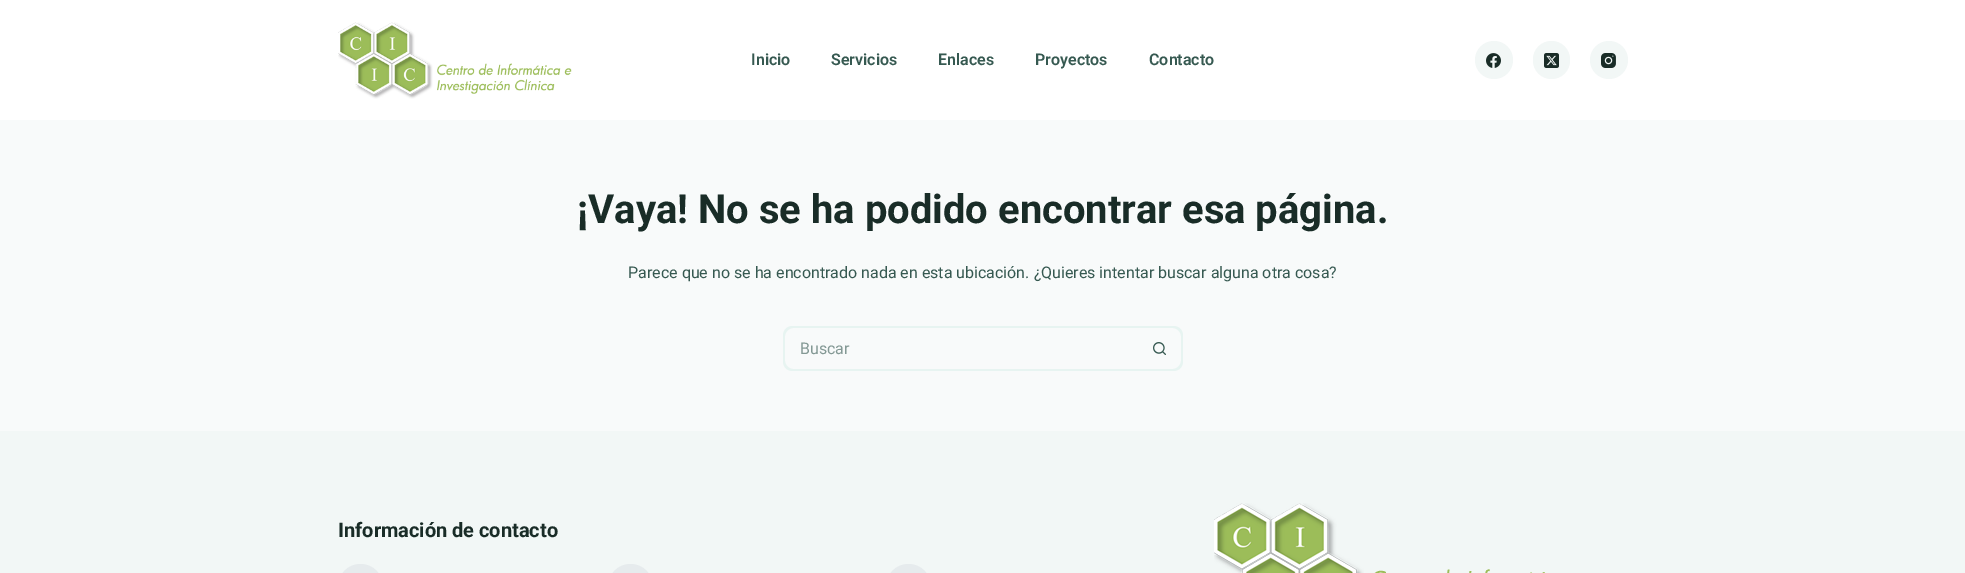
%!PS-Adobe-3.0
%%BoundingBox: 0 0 1965 573
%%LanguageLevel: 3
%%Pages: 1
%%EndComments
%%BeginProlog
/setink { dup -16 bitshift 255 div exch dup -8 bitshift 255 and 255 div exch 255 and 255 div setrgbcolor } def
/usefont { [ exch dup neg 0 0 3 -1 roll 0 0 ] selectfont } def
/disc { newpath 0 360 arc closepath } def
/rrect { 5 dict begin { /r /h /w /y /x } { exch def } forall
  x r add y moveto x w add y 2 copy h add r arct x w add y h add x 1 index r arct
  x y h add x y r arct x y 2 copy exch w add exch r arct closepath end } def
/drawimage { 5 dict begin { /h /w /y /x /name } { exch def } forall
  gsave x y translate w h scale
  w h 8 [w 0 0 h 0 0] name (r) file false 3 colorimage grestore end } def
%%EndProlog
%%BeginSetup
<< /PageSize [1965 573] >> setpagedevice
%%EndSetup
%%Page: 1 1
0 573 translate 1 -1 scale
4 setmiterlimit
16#F8FAFA setink
0 0 1965 573 rectfill
16#FFFFFF setink
0 0 1965 120 rectfill
(img1.raw) 338 22 234 77 drawimage
/Roboto-SemiBold 16 usefont
16#365951 setink
[
    [(Inicio) 751 65]
    [(Servicios) 831 65]
    [(Enlaces) 938 65]
    [(Proyectos) 1035 65]
    [(Contacto) 1149 65]
] { aload pop moveto show } forall
16#F2F7F6 setink
1494 60 19 disc fill
(img2.raw) 1486 53 15 15 drawimage
1533 41 37 38 18.5 rrect fill
(img3.raw) 1544 53 15 15 drawimage
1609 60 19 disc fill
(img4.raw) 1601 53 15 15 drawimage
/Roboto-Bold 40 usefont
16#192C27 setink
577 223 moveto (¡Vaya! No se ha podido encontrar esa página.) show
/Roboto-Regular 16 usefont
16#365951 setink
628 278 moveto (Parece que no se ha encontrado nada en esta ubicación. ¿Quieres intentar buscar alguna otra cosa?) show
16#E7F4F1 setink
793 326 moveto 1138 326 lineto 1138 371 lineto 793 371 lineto 787 371 783 367 783 361 curveto 783 336 lineto 783 330 787 326 793 326 curveto closepath 793 328 moveto 1138 328 lineto 1138 369 lineto 793 369 lineto 789 369 785 365 785 361 curveto 785 336 lineto 785 332 789 328 793 328 curveto closepath eofill
16#849995 setink
800 354 moveto (Buscar) show
16#E7F4F1 setink
1138 326 moveto 1173 326 lineto 1179 326 1183 330 1183 336 curveto 1183 361 lineto 1183 367 1179 371 1173 371 curveto 1138 371 lineto closepath 1138 328 moveto 1173 328 lineto 1177 328 1181 332 1181 336 curveto 1181 361 lineto 1181 365 1177 369 1173 369 curveto 1138 369 lineto closepath eofill
(img5.raw) 1153 342 13 13 drawimage
16#F2F7F6 setink
0 431 1965 142 rectfill
/Roboto-Bold 20 usefont
16#192C27 setink
338 537 moveto (Información de contacto) show
16#E6EBED setink
338 564 45 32 22.5 rrect fill
608 564 45 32 22.5 rrect fill
886 564 45 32 22.5 rrect fill
(img6.raw) 1214 503 331 70 drawimage
showpage
%%EOF
